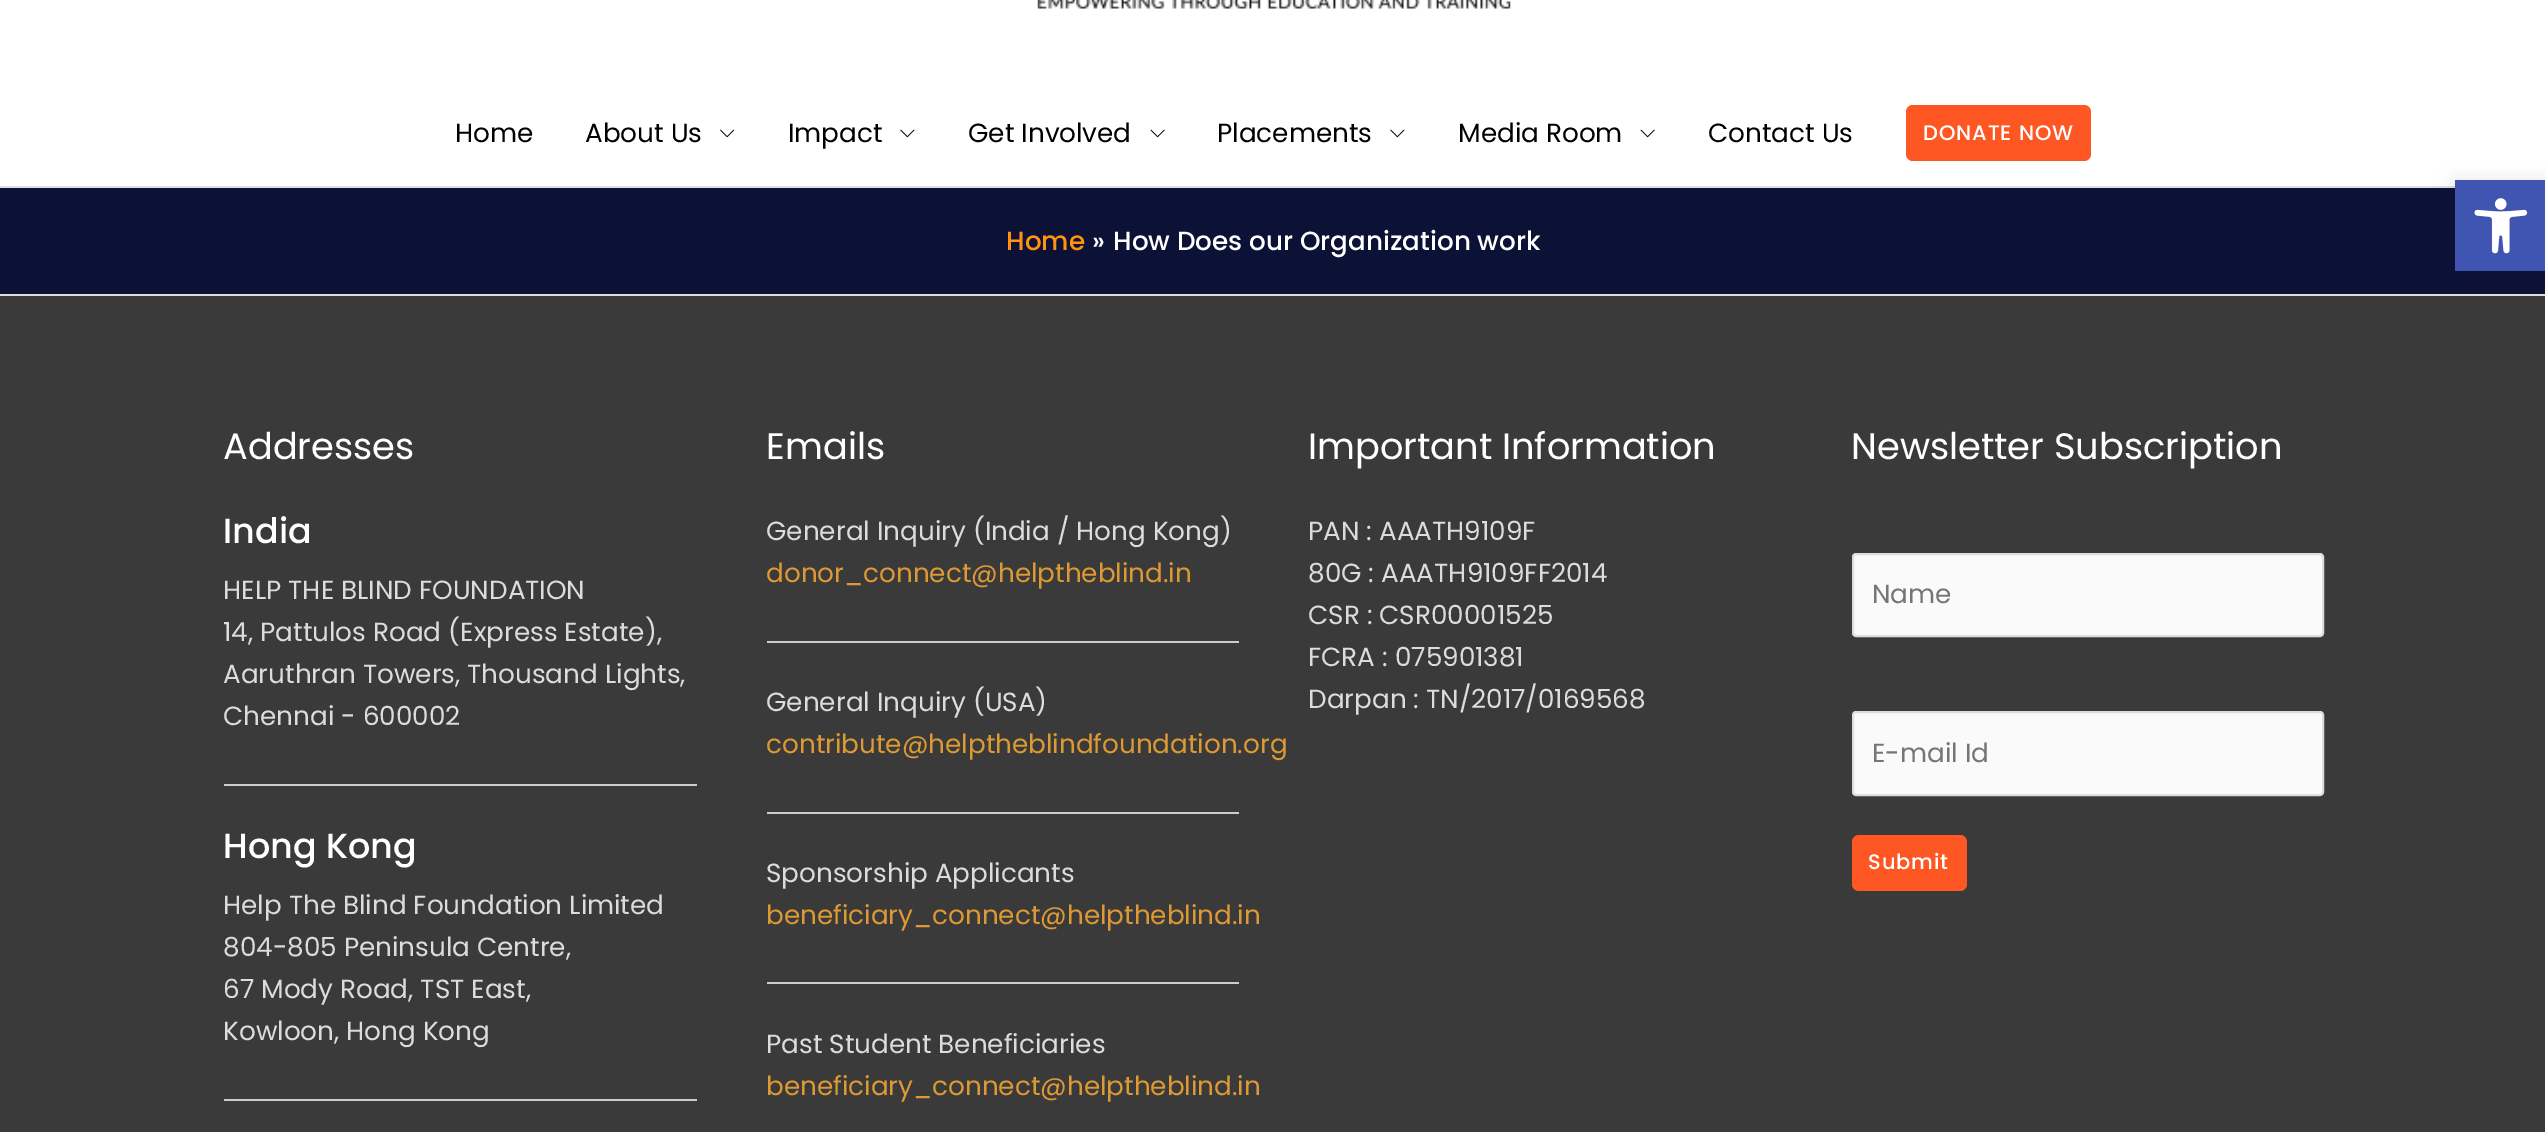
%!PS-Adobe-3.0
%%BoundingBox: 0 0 2545 1132
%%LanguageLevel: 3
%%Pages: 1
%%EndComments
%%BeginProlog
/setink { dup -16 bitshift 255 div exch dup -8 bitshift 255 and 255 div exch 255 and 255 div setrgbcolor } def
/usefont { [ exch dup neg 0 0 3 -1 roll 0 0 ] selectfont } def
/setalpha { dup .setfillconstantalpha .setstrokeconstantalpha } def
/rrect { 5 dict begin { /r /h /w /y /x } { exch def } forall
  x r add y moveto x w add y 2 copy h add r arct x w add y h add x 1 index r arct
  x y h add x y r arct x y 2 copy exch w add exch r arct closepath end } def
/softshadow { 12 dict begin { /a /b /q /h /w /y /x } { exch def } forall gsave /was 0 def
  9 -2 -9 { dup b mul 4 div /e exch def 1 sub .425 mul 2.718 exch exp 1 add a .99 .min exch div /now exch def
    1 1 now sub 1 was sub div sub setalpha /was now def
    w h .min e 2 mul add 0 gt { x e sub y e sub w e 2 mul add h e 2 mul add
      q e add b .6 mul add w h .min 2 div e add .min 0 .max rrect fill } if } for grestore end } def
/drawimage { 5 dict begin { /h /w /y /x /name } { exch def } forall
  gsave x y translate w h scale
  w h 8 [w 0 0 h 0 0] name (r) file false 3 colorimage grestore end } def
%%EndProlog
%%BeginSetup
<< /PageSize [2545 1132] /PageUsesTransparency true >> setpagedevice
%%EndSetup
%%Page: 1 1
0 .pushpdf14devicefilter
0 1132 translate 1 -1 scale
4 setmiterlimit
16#FFFFFF setink
0 0 2545 1132 rectfill
16#DDDDDD setink
0 186 2455 2 rectfill
(img1.raw) 1037 0 474 9 drawimage
/Poppins-Regular 26.25 usefont
16#000000 setink
455 142 moveto (Home) show
585 142 moveto (About Us) show
(img2.raw) 720 129 15 9 drawimage
788 142 moveto (Impact) show
(img3.raw) 900 129 15 9 drawimage
968 142 moveto (Get Involved) show
(img4.raw) 1150 129 15 9 drawimage
1217 142 moveto (Placements) show
(img3.raw) 1390 129 15 9 drawimage
1458 142 moveto (Media Room) show
(img4.raw) 1640 129 15 9 drawimage
1708 142 moveto (Contact Us) show
16#FF5723 setink
1906 105 185 56 7 rrect fill
/Poppins-Medium 21 usefont
16#FFFFFF setink
1923 140 moveto 0.9 0 (DONATE NOW) ashow
16#0C1136 setink
0 188 2545 106 rectfill
16#DDDDDD setink
0 294 2545 2 rectfill
/Poppins-Medium 26.25 usefont
16#FF930F setink
1006 250 moveto (Home) show
16#FFFFFF setink
1092 250 moveto (») show
1113 250 moveto (How Does our Organization work) show
16#3A3A3A setink
0 296 2545 836 rectfill
/Poppins-Regular 36.75 usefont
16#FFFFFF setink
223 459 moveto (Addresses) show
/Poppins-Medium 35 usefont
223 543 moveto (India) show
/Poppins-Regular 26.25 usefont
16#DCDCDC setink
[
    [(HELP THE BLIND FOUNDATION) 223 599]
    [(14, Pattulos Road \(Express Estate\),) 223 641]
    [(Aaruthran Towers, Thousand Lights,) 223 683]
    [(Chennai - 600002) 223 725]
] { aload pop moveto show } forall
16#CCCCCC setink
224 784 473 2 rectfill
/Poppins-Medium 35 usefont
16#FFFFFF setink
223 858 moveto (Hong Kong) show
/Poppins-Regular 26.25 usefont
16#DCDCDC setink
[
    [(Help The Blind Foundation Limited) 223 914]
    [(804-805 Peninsula Centre,) 223 956]
    [(67 Mody Road, TST East,) 223 998]
    [(Kowloon, Hong Kong) 223 1040]
] { aload pop moveto show } forall
16#CCCCCC setink
224 1099 473 2 rectfill
/Poppins-Regular 36.75 usefont
16#FFFFFF setink
766 459 moveto (Emails) show
/Poppins-Regular 26.25 usefont
16#DCDCDC setink
766 540 moveto (General Inquiry \(India / Hong Kong\)) show
16#DD9933 setink
766 582 moveto (donor_connect@helptheblind.in) show
16#CCCCCC setink
767 641 472 2 rectfill
16#DCDCDC setink
766 711 moveto (General Inquiry \(USA\)) show
16#DD9933 setink
766 753 moveto (contribute@helptheblindfoundation.org) show
16#CCCCCC setink
767 812 472 2 rectfill
16#DCDCDC setink
766 882 moveto (Sponsorship Applicants) show
16#DD9933 setink
766 924 moveto (beneficiary_connect@helptheblind.in) show
16#CCCCCC setink
767 982 472 2 rectfill
16#DCDCDC setink
766 1053 moveto (Past Student Beneficiaries) show
16#DD9933 setink
766 1095 moveto (beneficiary_connect@helptheblind.in) show
/Poppins-Regular 36.75 usefont
16#FFFFFF setink
1308 459 moveto (Important Information) show
/Poppins-Regular 26.25 usefont
16#DCDCDC setink
[
    [(PAN : AAATH9109F) 1308 540]
    [(80G : AAATH9109FF2014) 1308 582]
    [(CSR : CSR00001525) 1308 624]
    [(FCRA : 075901381) 1308 666]
    [(Darpan : TN/2017/0169568) 1308 708]
] { aload pop moveto show } forall
/Poppins-Regular 36.75 usefont
16#FFFFFF setink
1851 459 moveto (Newsletter Subscription) show
16#FAFAFA setink
1853 554 470 82 3 rrect gsave fill grestore
16#DDDDDD setink
2 setlinewidth
stroke
/Poppins-Regular 26.25 usefont
16#757575 setink
1872 603 moveto (Name) show
16#FAFAFA setink
1853 712 470 83 3 rrect gsave fill grestore
16#DDDDDD setink
stroke
16#757575 setink
1872 762 moveto (E-mail Id) show
16#FF5723 setink
1852 835 115 56 7 rrect fill
/Poppins-Medium 21 usefont
16#FFFFFF setink
1868 869 moveto 0.9 0 (Submit) ashow
16#000000 setink
2455 180 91 91 0 9 0.1 softshadow
16#4054B2 setink
2455 180 90 91 rectfill
(img5.raw) 2474 198 54 56 drawimage
.poppdf14devicefilter showpage
%%EOF
